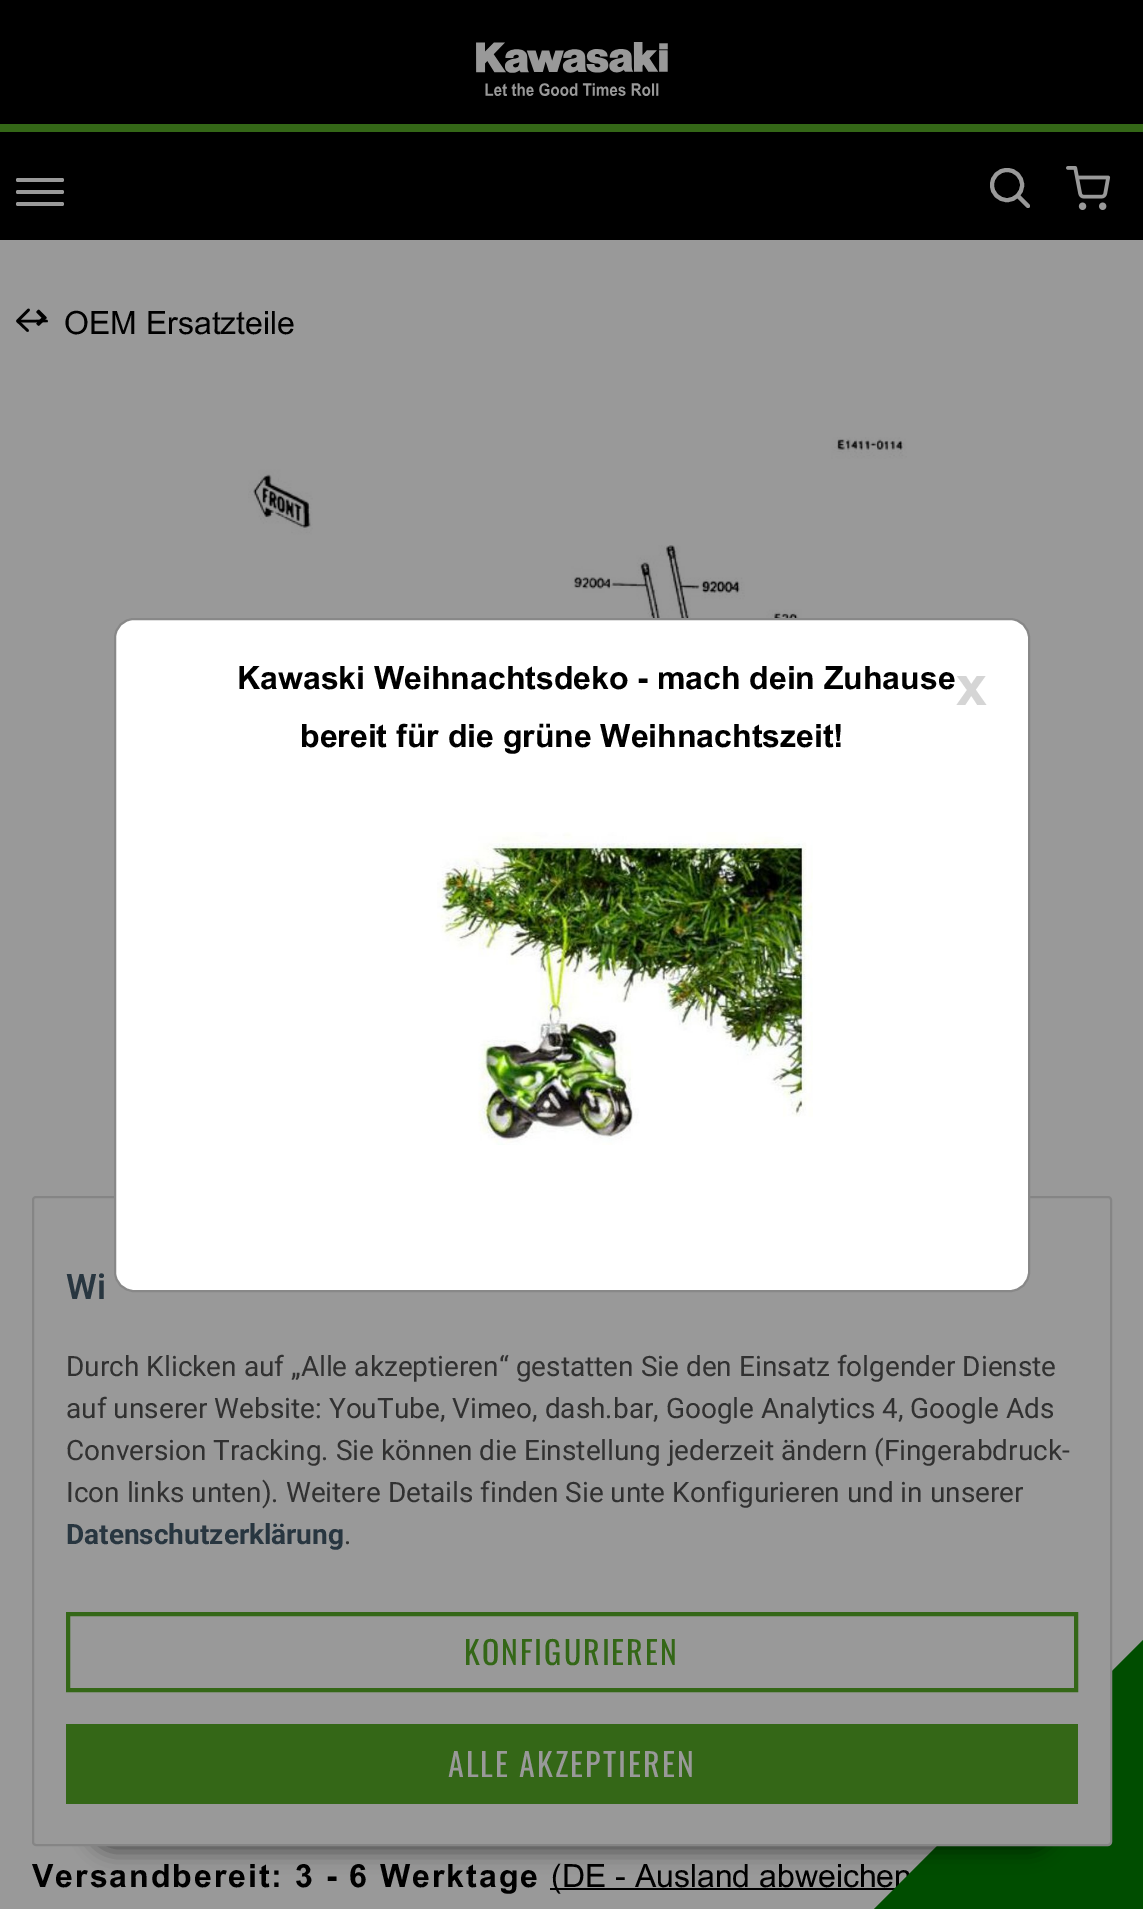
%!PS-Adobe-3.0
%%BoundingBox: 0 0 1143 1909
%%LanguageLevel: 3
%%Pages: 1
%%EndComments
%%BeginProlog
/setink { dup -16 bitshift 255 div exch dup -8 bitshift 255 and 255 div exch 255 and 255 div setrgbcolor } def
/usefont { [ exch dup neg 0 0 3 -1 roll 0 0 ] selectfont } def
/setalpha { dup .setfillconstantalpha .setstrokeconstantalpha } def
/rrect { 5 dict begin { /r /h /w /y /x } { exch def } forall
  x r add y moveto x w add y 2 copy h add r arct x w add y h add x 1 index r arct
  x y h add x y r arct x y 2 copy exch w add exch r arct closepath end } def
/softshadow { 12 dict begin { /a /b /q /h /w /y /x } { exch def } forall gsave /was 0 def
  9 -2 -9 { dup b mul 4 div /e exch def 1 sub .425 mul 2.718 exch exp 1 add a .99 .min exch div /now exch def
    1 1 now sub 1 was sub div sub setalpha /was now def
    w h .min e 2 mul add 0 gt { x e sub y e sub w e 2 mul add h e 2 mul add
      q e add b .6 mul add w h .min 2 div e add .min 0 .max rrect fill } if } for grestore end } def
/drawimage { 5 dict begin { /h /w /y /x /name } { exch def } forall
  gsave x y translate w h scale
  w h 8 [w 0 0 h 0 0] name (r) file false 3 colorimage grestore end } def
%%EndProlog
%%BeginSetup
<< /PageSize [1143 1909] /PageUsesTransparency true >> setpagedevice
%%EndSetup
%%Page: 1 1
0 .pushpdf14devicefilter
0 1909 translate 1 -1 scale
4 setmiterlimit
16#999999 setink
0 0 1143 1909 rectfill
16#000000 setink
0 0 1143 240 rectfill
(img1.raw) 476 42 192 54 drawimage
16#999999 setink
16 190 48 4 2 rrect fill
16 178 48 4 2 rrect fill
16 202 48 4 2 rrect fill
16#346717 setink
0 124 1143 8 rectfill
16#999999 setink
4 setlinewidth
1 setlinecap
1 setlinejoin
1007 200 moveto 1015.5 200 1022 193.5 1022 185 curveto 1022 176.5 1015.5 170 1007 170 curveto 998.5 170 992 176.5 992 185 curveto 992 193.5 998.5 200 1007 200 curveto closepath 1028 206 moveto 1017.5 195.5 lineto stroke
(img2.raw) 1066 166 45 44 drawimage
16#000000 setink
2.6 setlinewidth
19 321 moveto 46.5 321 lineto 27.5 330.5 moveto 17.5 321 lineto 28.5 310 lineto stroke
(img3.raw) 36 309 11 17 drawimage
/Arial-Regular 32 usefont
64 334 moveto (OEM Ersatzteile) show
(img4.raw) 248 437 659 181 drawimage
/Arial-Bold 32 usefont
32 1887 moveto 2 0 (Versandbereit: 3 - 6 Werktage) ashow
550 1888 345 2 rectfill
/Arial-Regular 32 usefont
551 1887 moveto (\(DE - Ausland abweichen) show
16#004D00 setink
865 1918 moveto 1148 1635 lineto 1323 1810 lineto 1040 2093 lineto closepath fill
16#000000 setink
88 1788 968 64 32 10 0.45 softshadow
16#999999 setink
33 1197 1078 648 3 rrect gsave fill grestore
16#858585 setink
2 setlinewidth
0 setlinecap
0 setlinejoin
stroke
16#FFFFFF setink
115 619 914 672 19 rrect gsave fill grestore
16#888888 setink
stroke
/Arial-Bold 32 usefont
16#000000 setink
237 689 moveto (Kawaski Weihnachtsdeko - mach dein Zuhause) show
300 747 moveto (bereit für die grüne Weihnachtszeit!) show
(img5.raw) 437 832 376 313 drawimage
/Arial-Bold 56 usefont
16#D5D5D5 setink
956 705 moveto (x) show
/Roboto-SemiBold 35 usefont
16#283640 setink
66 1299 moveto (Wi) show
/Roboto-Regular 28 usefont
16#313131 setink
[
    [(Durch Klicken auf „Alle akzeptieren“ gestatten Sie den Einsatz folgender Dienste) 66 1376]
    [(auf unserer Website: YouTube, Vimeo, dash.bar, Google Analytics 4, Google Ads) 66 1418]
    [(Conversion Tracking. Sie können die Einstellung jederzeit ändern \(Fingerabdruck-) 66 1460]
    [(Icon links unten\). Weitere Details finden Sie unte Konfigurieren und in unserer) 66 1502]
] { aload pop moveto show } forall
/Roboto-Bold 28 usefont
16#283640 setink
66 1544 moveto (Datenschutzerklärung) show
/Roboto-Regular 28 usefont
16#313131 setink
344 1544 moveto (.) show
16#346717 setink
4 setlinewidth
68 1614 1008 76 rectstroke
/Oswald-Regular 32 usefont
464 1665 moveto 2 0 (KONFIGURIEREN) ashow
66 1724 1012 80 rectfill
16#999999 setink
448 1777 moveto 2 0 (ALLE AKZEPTIEREN) ashow
.poppdf14devicefilter showpage
%%EOF
